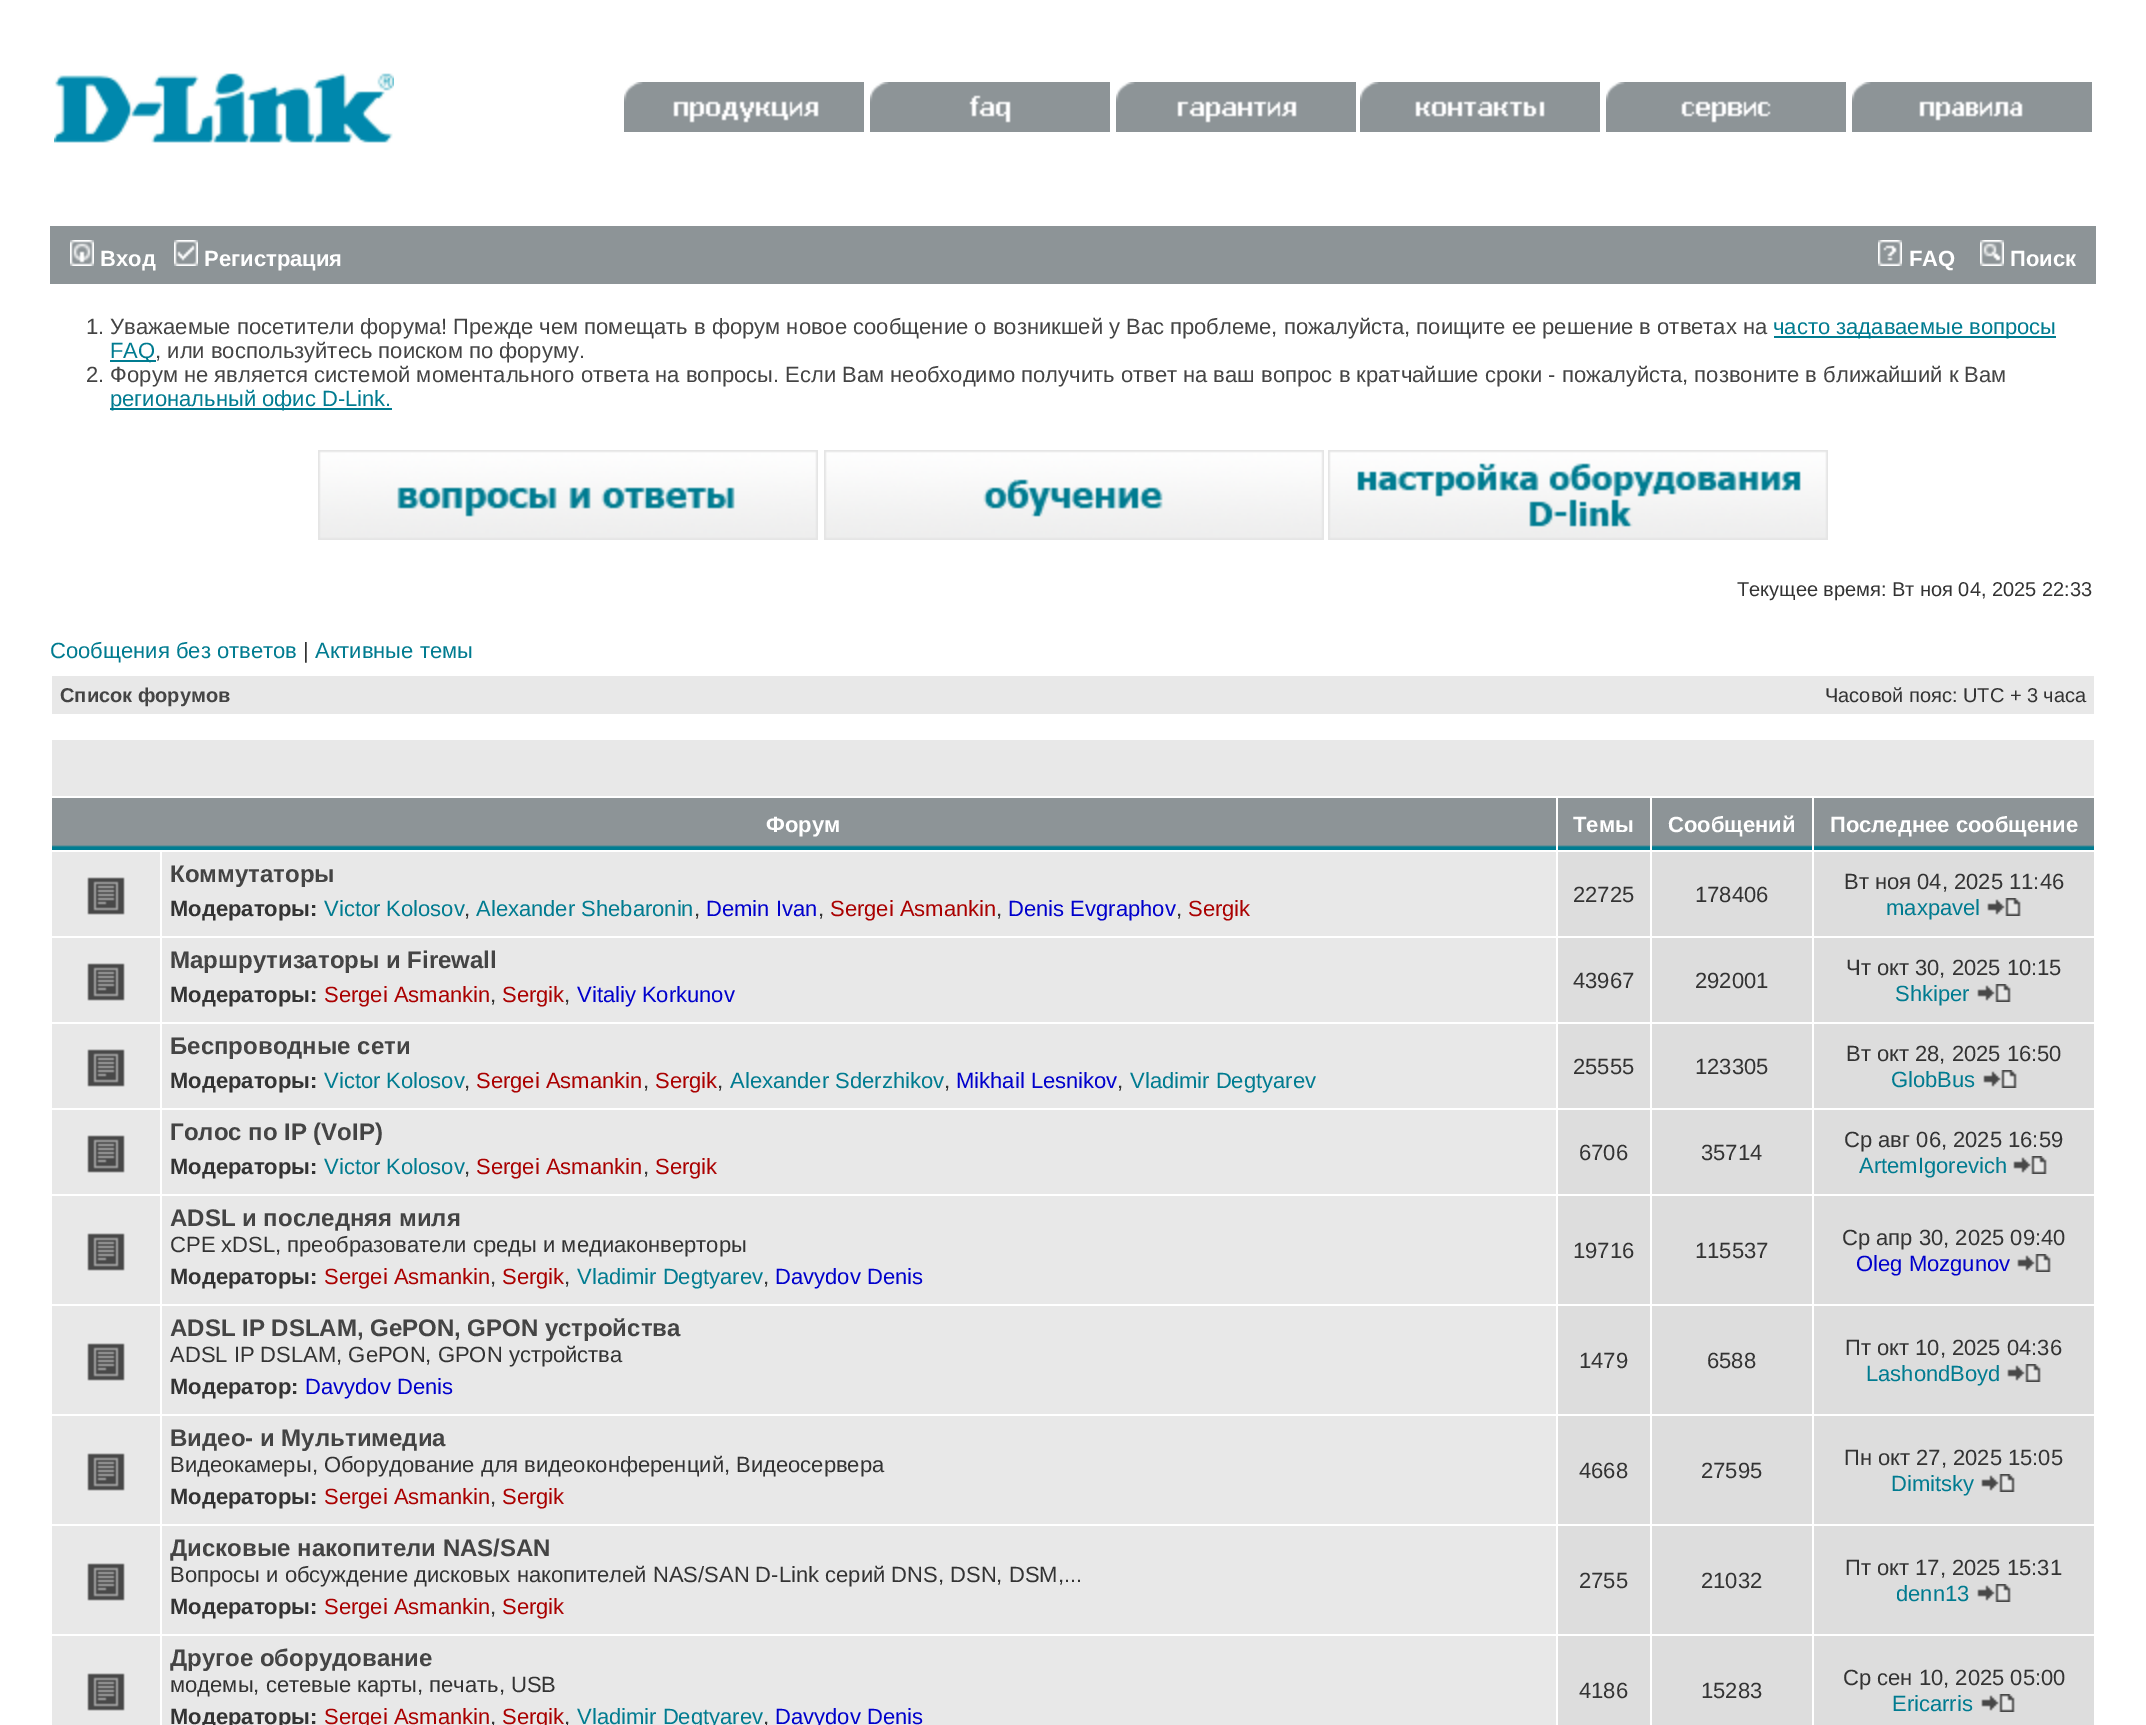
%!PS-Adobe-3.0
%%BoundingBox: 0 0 2146 1725
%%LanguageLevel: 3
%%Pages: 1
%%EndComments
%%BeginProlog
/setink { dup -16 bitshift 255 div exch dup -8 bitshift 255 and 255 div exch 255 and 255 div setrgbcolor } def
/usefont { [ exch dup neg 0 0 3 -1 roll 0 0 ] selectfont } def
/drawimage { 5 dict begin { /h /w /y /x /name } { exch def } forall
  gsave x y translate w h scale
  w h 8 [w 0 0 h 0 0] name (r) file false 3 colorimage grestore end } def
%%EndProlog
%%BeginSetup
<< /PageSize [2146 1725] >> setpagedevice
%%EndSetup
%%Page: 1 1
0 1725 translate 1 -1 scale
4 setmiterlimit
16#FFFFFF setink
0 0 2146 1725 rectfill
(img1.raw) 54 73 340 70 drawimage
(img2.raw) 624 82 240 50 drawimage
(img3.raw) 870 82 240 50 drawimage
(img4.raw) 1116 82 240 50 drawimage
(img5.raw) 1360 82 240 50 drawimage
(img6.raw) 1606 82 240 50 drawimage
(img7.raw) 1852 82 240 50 drawimage
16#8D9497 setink
50 226 2046 58 rectfill
(img8.raw) 70 240 24 26 drawimage
/LiberationSans-Bold 22 usefont
16#FFFFFF setink
100 266 moveto (Вход) show
(img9.raw) 174 240 24 26 drawimage
204 266 moveto (Регистрация) show
(img10.raw) 1878 240 24 26 drawimage
1909 266 moveto (FAQ) show
(img11.raw) 1980 240 24 26 drawimage
2010 266 moveto (Поиск) show
/LiberationSans-Regular 22 usefont
16#444444 setink
86 334 moveto (1. Уважаемые посетители форума! Прежде чем помещать в форум новое сообщение о возникшей у Вас проблеме, пожалуйста, поищите ее решение в ответах на) show
16#007C91 setink
1774 336 282 2 rectfill
16#007B90 setink
1773 334 moveto (часто задаваемые вопросы) show
16#007C91 setink
110 360 46 2 rectfill
16#007B90 setink
110 358 moveto (FAQ) show
16#444444 setink
155 358 moveto (, или воспользуйтесь поиском по форуму.) show
86 382 moveto (2. Форум не является системой моментального ответа на вопросы. Если Вам необходимо получить ответ на ваш вопрос в кратчайшие сроки - пожалуйста, позвоните в ближайший к Вам) show
16#007C91 setink
110 408 282 2 rectfill
16#007B90 setink
110 406 moveto (региональный офис D-Link.) show
(img12.raw) 318 450 500 90 drawimage
(img13.raw) 824 450 500 90 drawimage
(img14.raw) 1328 450 500 90 drawimage
/LiberationSans-Regular 20 usefont
16#333333 setink
1737 596 moveto (Текущее время: Вт ноя 04, 2025 22:33) show
/LiberationSans-Regular 22 usefont
16#007B90 setink
50 658 moveto (Сообщения без ответов) show
16#333333 setink
303 658 moveto (|) show
16#007B90 setink
315 658 moveto (Активные темы) show
16#E8E8E8 setink
52 676 2042 38 rectfill
/LiberationSans-Bold 20 usefont
16#444444 setink
60 702 moveto (Список форумов) show
/LiberationSans-Regular 20 usefont
16#333333 setink
1825 702 moveto (Часовой пояс: UTC + 3 часа) show
16#E8E8E8 setink
52 740 2042 56 rectfill
(img15.raw) 52 798 1504 52 drawimage
/LiberationSans-Bold 22 usefont
16#FFFFFF setink
766 832 moveto (Форум) show
(img16.raw) 1558 798 92 52 drawimage
1573 832 moveto (Темы) show
(img17.raw) 1652 798 160 52 drawimage
1668 832 moveto (Сообщений) show
(img18.raw) 1814 798 280 52 drawimage
1830 832 moveto (Последнее сообщение) show
16#E8E8E8 setink
52 852 108 84 rectfill
(img19.raw) 87 877 38 38 drawimage
162 852 1394 84 rectfill
/LiberationSans-Bold 24 usefont
16#444444 setink
170 882 moveto (Коммутаторы) show
/LiberationSans-Bold 22 usefont
16#333333 setink
170 916 moveto (Модераторы:) show
/LiberationSans-Regular 22 usefont
16#007B90 setink
324 916 moveto (Victor Kolosov) show
16#333333 setink
464 916 moveto (,) show
16#007B90 setink
476 916 moveto (Alexander Shebaronin) show
16#333333 setink
694 916 moveto (,) show
16#0000CC setink
706 916 moveto (Demin Ivan) show
16#333333 setink
818 916 moveto (,) show
16#AA0000 setink
830 916 moveto (Sergei Asmankin) show
16#333333 setink
996 916 moveto (,) show
16#0000CC setink
1008 916 moveto (Denis Evgraphov) show
16#333333 setink
1176 916 moveto (,) show
16#AA0000 setink
1188 916 moveto (Sergik) show
16#DDDDDD setink
1558 852 92 84 rectfill
16#333333 setink
1573 902 moveto (22725) show
16#DDDDDD setink
1652 852 160 84 rectfill
16#333333 setink
1695 902 moveto (178406) show
16#DDDDDD setink
1814 852 280 84 rectfill
16#333333 setink
1844 889 moveto (Вт ноя 04, 2025 11:46) show
16#007B90 setink
1886 915 moveto (maxpavel) show
(img20.raw) 1987 898 34 18 drawimage
16#E8E8E8 setink
52 938 108 84 rectfill
(img19.raw) 87 963 38 38 drawimage
162 938 1394 84 rectfill
/LiberationSans-Bold 24 usefont
16#444444 setink
170 968 moveto (Маршрутизаторы и Firewall) show
/LiberationSans-Bold 22 usefont
16#333333 setink
170 1002 moveto (Модераторы:) show
/LiberationSans-Regular 22 usefont
16#AA0000 setink
324 1002 moveto (Sergei Asmankin) show
16#333333 setink
490 1002 moveto (,) show
16#AA0000 setink
502 1002 moveto (Sergik) show
16#333333 setink
564 1002 moveto (,) show
16#0000CC setink
577 1002 moveto (Vitaliy Korkunov) show
16#DDDDDD setink
1558 938 92 84 rectfill
16#333333 setink
1573 988 moveto (43967) show
16#DDDDDD setink
1652 938 160 84 rectfill
16#333333 setink
1695 988 moveto (292001) show
16#DDDDDD setink
1814 938 280 84 rectfill
16#333333 setink
1846 975 moveto (Чт окт 30, 2025 10:15) show
16#007B90 setink
1895 1001 moveto (Shkiper) show
(img20.raw) 1977 984 34 18 drawimage
16#E8E8E8 setink
52 1024 108 84 rectfill
(img19.raw) 87 1049 38 38 drawimage
162 1024 1394 84 rectfill
/LiberationSans-Bold 24 usefont
16#444444 setink
170 1054 moveto (Беспроводные сети) show
/LiberationSans-Bold 22 usefont
16#333333 setink
170 1088 moveto (Модераторы:) show
/LiberationSans-Regular 22 usefont
16#007B90 setink
324 1088 moveto (Victor Kolosov) show
16#333333 setink
464 1088 moveto (,) show
16#AA0000 setink
476 1088 moveto (Sergei Asmankin) show
16#333333 setink
643 1088 moveto (,) show
16#AA0000 setink
655 1088 moveto (Sergik) show
16#333333 setink
717 1088 moveto (,) show
16#007B90 setink
730 1088 moveto (Alexander Sderzhikov) show
16#333333 setink
944 1088 moveto (,) show
16#0000CC setink
956 1088 moveto (Mikhail Lesnikov) show
16#333333 setink
1117 1088 moveto (,) show
16#007B90 setink
1130 1088 moveto (Vladimir Degtyarev) show
16#DDDDDD setink
1558 1024 92 84 rectfill
16#333333 setink
1573 1074 moveto (25555) show
16#DDDDDD setink
1652 1024 160 84 rectfill
16#333333 setink
1695 1074 moveto (123305) show
16#DDDDDD setink
1814 1024 280 84 rectfill
16#333333 setink
1846 1061 moveto (Вт окт 28, 2025 16:50) show
16#007B90 setink
1891 1087 moveto (GlobBus) show
(img20.raw) 1983 1070 34 18 drawimage
16#E8E8E8 setink
52 1110 108 84 rectfill
(img19.raw) 87 1135 38 38 drawimage
162 1110 1394 84 rectfill
/LiberationSans-Bold 24 usefont
16#444444 setink
170 1140 moveto (Голос по IP \(VoIP\)) show
/LiberationSans-Bold 22 usefont
16#333333 setink
170 1174 moveto (Модераторы:) show
/LiberationSans-Regular 22 usefont
16#007B90 setink
324 1174 moveto (Victor Kolosov) show
16#333333 setink
464 1174 moveto (,) show
16#AA0000 setink
476 1174 moveto (Sergei Asmankin) show
16#333333 setink
643 1174 moveto (,) show
16#AA0000 setink
655 1174 moveto (Sergik) show
16#DDDDDD setink
1558 1110 92 84 rectfill
16#333333 setink
1579 1160 moveto (6706) show
16#DDDDDD setink
1652 1110 160 84 rectfill
16#333333 setink
1701 1160 moveto (35714) show
16#DDDDDD setink
1814 1110 280 84 rectfill
16#333333 setink
1844 1147 moveto (Ср авг 06, 2025 16:59) show
16#007B90 setink
1859 1173 moveto (ArtemIgorevich) show
(img20.raw) 2013 1156 34 18 drawimage
16#E8E8E8 setink
52 1196 108 108 rectfill
(img19.raw) 87 1233 38 38 drawimage
162 1196 1394 108 rectfill
/LiberationSans-Bold 24 usefont
16#444444 setink
170 1226 moveto (ADSL и последняя миля) show
/LiberationSans-Regular 22 usefont
16#333333 setink
170 1252 moveto (CPE xDSL, преобразователи среды и медиаконверторы) show
/LiberationSans-Bold 22 usefont
170 1284 moveto (Модераторы:) show
/LiberationSans-Regular 22 usefont
16#AA0000 setink
324 1284 moveto (Sergei Asmankin) show
16#333333 setink
490 1284 moveto (,) show
16#AA0000 setink
502 1284 moveto (Sergik) show
16#333333 setink
564 1284 moveto (,) show
16#007B90 setink
577 1284 moveto (Vladimir Degtyarev) show
16#333333 setink
763 1284 moveto (,) show
16#0000CC setink
775 1284 moveto (Davydov Denis) show
16#DDDDDD setink
1558 1196 92 108 rectfill
16#333333 setink
1573 1258 moveto (19716) show
16#DDDDDD setink
1652 1196 160 108 rectfill
16#333333 setink
1695 1258 moveto (115537) show
16#DDDDDD setink
1814 1196 280 108 rectfill
16#333333 setink
1842 1245 moveto (Ср апр 30, 2025 09:40) show
16#0000CC setink
1856 1271 moveto (Oleg Mozgunov) show
(img20.raw) 2017 1254 34 18 drawimage
16#E8E8E8 setink
52 1306 108 108 rectfill
(img19.raw) 87 1343 38 38 drawimage
162 1306 1394 108 rectfill
/LiberationSans-Bold 24 usefont
16#444444 setink
170 1336 moveto (ADSL IP DSLAM, GePON, GPON устройства) show
/LiberationSans-Regular 22 usefont
16#333333 setink
170 1362 moveto (ADSL IP DSLAM, GePON, GPON устройства) show
/LiberationSans-Bold 22 usefont
170 1394 moveto (Модератор:) show
/LiberationSans-Regular 22 usefont
16#0000CC setink
305 1394 moveto (Davydov Denis) show
16#DDDDDD setink
1558 1306 92 108 rectfill
16#333333 setink
1579 1368 moveto (1479) show
16#DDDDDD setink
1652 1306 160 108 rectfill
16#333333 setink
1707 1368 moveto (6588) show
16#DDDDDD setink
1814 1306 280 108 rectfill
16#333333 setink
1845 1355 moveto (Пт окт 10, 2025 04:36) show
16#007B90 setink
1866 1381 moveto (LashondBoyd) show
(img20.raw) 2007 1364 34 18 drawimage
16#E8E8E8 setink
52 1416 108 108 rectfill
(img19.raw) 87 1453 38 38 drawimage
162 1416 1394 108 rectfill
/LiberationSans-Bold 24 usefont
16#444444 setink
170 1446 moveto (Видео- и Мультимедиа) show
/LiberationSans-Regular 22 usefont
16#333333 setink
170 1472 moveto (Видеокамеры, Оборудование для видеоконференций, Видеосервера) show
/LiberationSans-Bold 22 usefont
170 1504 moveto (Модераторы:) show
/LiberationSans-Regular 22 usefont
16#AA0000 setink
324 1504 moveto (Sergei Asmankin) show
16#333333 setink
490 1504 moveto (,) show
16#AA0000 setink
502 1504 moveto (Sergik) show
16#DDDDDD setink
1558 1416 92 108 rectfill
16#333333 setink
1579 1478 moveto (4668) show
16#DDDDDD setink
1652 1416 160 108 rectfill
16#333333 setink
1701 1478 moveto (27595) show
16#DDDDDD setink
1814 1416 280 108 rectfill
16#333333 setink
1844 1465 moveto (Пн окт 27, 2025 15:05) show
16#007B90 setink
1891 1491 moveto (Dimitsky) show
(img20.raw) 1981 1474 34 18 drawimage
16#E8E8E8 setink
52 1526 108 108 rectfill
(img19.raw) 87 1563 38 38 drawimage
162 1526 1394 108 rectfill
/LiberationSans-Bold 24 usefont
16#444444 setink
170 1556 moveto (Дисковые накопители NAS/SAN) show
/LiberationSans-Regular 22 usefont
16#333333 setink
170 1582 moveto (Вопросы и обсуждение дисковых накопителей NAS/SAN D-Link серий DNS, DSN, DSM,...) show
/LiberationSans-Bold 22 usefont
170 1614 moveto (Модераторы:) show
/LiberationSans-Regular 22 usefont
16#AA0000 setink
324 1614 moveto (Sergei Asmankin) show
16#333333 setink
490 1614 moveto (,) show
16#AA0000 setink
502 1614 moveto (Sergik) show
16#DDDDDD setink
1558 1526 92 108 rectfill
16#333333 setink
1579 1588 moveto (2755) show
16#DDDDDD setink
1652 1526 160 108 rectfill
16#333333 setink
1701 1588 moveto (21032) show
16#DDDDDD setink
1814 1526 280 108 rectfill
16#333333 setink
1845 1575 moveto (Пт окт 17, 2025 15:31) show
16#007B90 setink
1896 1601 moveto (denn13) show
(img20.raw) 1977 1584 34 18 drawimage
16#E8E8E8 setink
52 1636 108 89 rectfill
(img19.raw) 87 1673 38 38 drawimage
162 1636 1394 89 rectfill
/LiberationSans-Bold 24 usefont
16#444444 setink
170 1666 moveto (Другое оборудование) show
/LiberationSans-Regular 22 usefont
16#333333 setink
170 1692 moveto (модемы, сетевые карты, печать, USB) show
/LiberationSans-Bold 22 usefont
170 1724 moveto (Модераторы:) show
/LiberationSans-Regular 22 usefont
16#AA0000 setink
324 1724 moveto (Sergei Asmankin) show
16#333333 setink
490 1724 moveto (,) show
16#AA0000 setink
502 1724 moveto (Sergik) show
16#333333 setink
564 1724 moveto (,) show
16#007B90 setink
577 1724 moveto (Vladimir Degtyarev) show
16#333333 setink
763 1724 moveto (,) show
16#0000CC setink
775 1724 moveto (Davydov Denis) show
16#DDDDDD setink
1558 1636 92 89 rectfill
16#333333 setink
1579 1698 moveto (4186) show
16#DDDDDD setink
1652 1636 160 89 rectfill
16#333333 setink
1701 1698 moveto (15283) show
16#DDDDDD setink
1814 1636 280 89 rectfill
16#333333 setink
1843 1685 moveto (Ср сен 10, 2025 05:00) show
16#007B90 setink
1892 1711 moveto (Ericarris) show
(img20.raw) 1981 1694 34 18 drawimage
showpage
%%EOF
